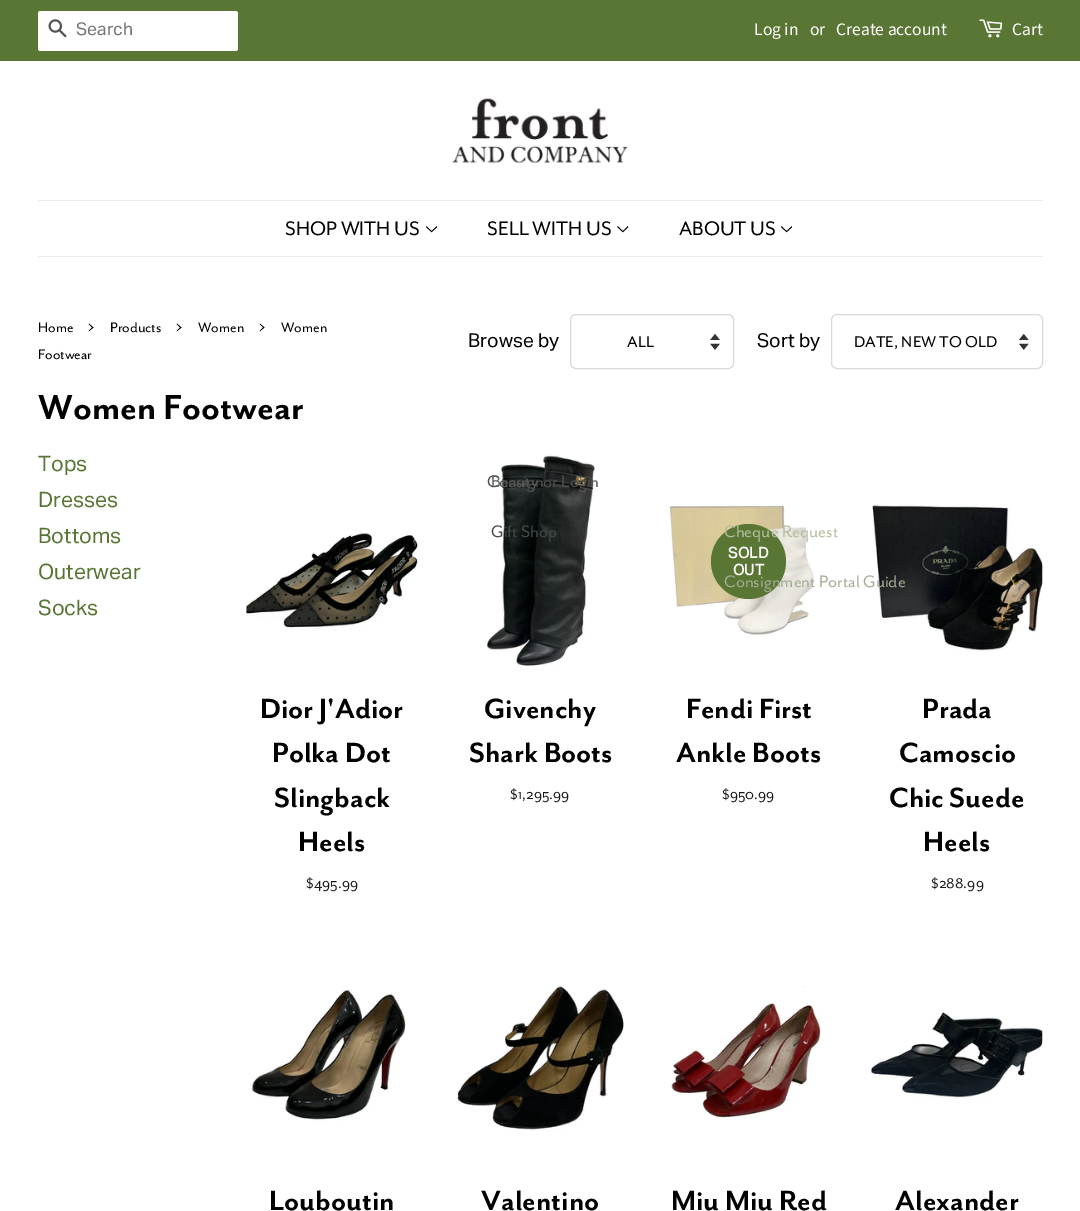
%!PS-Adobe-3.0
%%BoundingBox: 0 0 1080 1211
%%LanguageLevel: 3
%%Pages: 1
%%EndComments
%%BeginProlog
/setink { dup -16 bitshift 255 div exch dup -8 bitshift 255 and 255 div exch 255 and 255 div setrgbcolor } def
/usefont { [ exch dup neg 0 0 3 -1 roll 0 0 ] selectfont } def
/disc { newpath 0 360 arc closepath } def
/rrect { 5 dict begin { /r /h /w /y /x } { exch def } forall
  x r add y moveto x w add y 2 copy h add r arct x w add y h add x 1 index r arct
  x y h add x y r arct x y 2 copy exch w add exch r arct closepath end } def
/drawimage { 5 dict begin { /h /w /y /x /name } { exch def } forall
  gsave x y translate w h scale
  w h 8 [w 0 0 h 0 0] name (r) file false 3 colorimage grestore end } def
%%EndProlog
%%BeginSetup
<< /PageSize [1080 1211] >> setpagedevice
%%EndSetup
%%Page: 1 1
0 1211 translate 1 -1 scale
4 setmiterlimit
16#FFFFFF setink
0 0 1080 1211 rectfill
16#5A7635 setink
0 0 1080 61 rectfill
16#FFFFFF setink
38 11 200 40 2.5 rrect fill
(img1.raw) 48 19 19 19 drawimage
/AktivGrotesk-Regular 17.5 usefont
16#757575 setink
76 35 moveto (Search) show
/SourceSansPro-Regular 17.5 usefont
16#FFFFFF setink
[
    [(Log in) 754 35]
    [(or) 810 35]
    [(Create account) 836 35]
] { aload pop moveto show } forall
(img2.raw) 979 19 24 19 drawimage
1012 35 moveto (Cart) show
(img3.raw) 452 98 176 65 drawimage
16#EBEBEB setink
38 200 1005 1 rectfill
38 256 1005 1 rectfill
/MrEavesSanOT-Regular 22.5 usefont
16#000000 setink
285 235 moveto (SHOP WITH US) show
(img4.raw) 426 226 12 7 drawimage
(img9.raw) 485 454 110 212 drawimage
/MrEavesSanOT-Regular 19.1 usefont
16#5E6161 setink
491 487 moveto (Beauty) show
16#464949 setink
491 537 moveto (Gift Shop) show
/MrEavesSanOT-Regular 22.5 usefont
16#000000 setink
487 235 moveto (SELL WITH US) show
(img5.raw) 617 226 12 7 drawimage
/MrEavesSanOT-Regular 19.1 usefont
16#50514F setink
487 487 moveto (Consignor Login) show
(img10.raw) 669 505 145 130 drawimage
16#5A7635 setink
748.5 561.5 37.5 disc fill
16#B5BEA0 setink
724 537 moveto (Cheque Request) show
(img11.raw) 872 504 171 148 drawimage
16#A4AC97 setink
724 587 moveto (Consignment Portal Guide) show
/MrEavesSanOT-Regular 22.5 usefont
16#000000 setink
679 235 moveto (ABOUT US) show
(img4.raw) 781 226 12 7 drawimage
/MrEavesSanOT-Regular 16 usefont
38 332 moveto (Home) show
/MrEavesSanOT-Regular 22 usefont
88 332 moveto (›) show
/MrEavesSanOT-Regular 16 usefont
110 332 moveto (Products) show
/MrEavesSanOT-Regular 22 usefont
176 332 moveto (›) show
/MrEavesSanOT-Regular 16 usefont
198 332 moveto (Women) show
/MrEavesSanOT-Regular 22 usefont
259 332 moveto (›) show
/MrEavesSanOT-Regular 16 usefont
281 332 moveto (Women) show
38 359 moveto (Footwear) show
/AktivGrotesk-Regular 19.1 usefont
468 347 moveto (Browse by) show
(img6.raw) 710 334 10 16 drawimage
16#D9D9D9 setink
570.5 314.5 163 54 5.5 rrect stroke
/MrEavesSanOT-Regular 18 usefont
16#000000 setink
627 347 moveto (ALL) show
/AktivGrotesk-Regular 19.1 usefont
757 347 moveto (Sort by) show
(img7.raw) 1019 334 10 16 drawimage
16#D9D9D9 setink
831.5 314.5 211 54 5.5 rrect stroke
/MrEavesSanOT-Regular 18 usefont
16#000000 setink
854 347 moveto (DATE, NEW TO OLD) show
/MrEavesSanOT-Bold 40 usefont
38 419 moveto (Women Footwear) show
/AktivGrotesk-Regular 21.25 usefont
16#5A7635 setink
[
    [(Tops) 38 471]
    [(Dresses) 38 507]
    [(Bottoms) 38 543]
    [(Outerwear) 38 579]
    [(Socks) 38 615]
] { aload pop moveto show } forall
(img8.raw) 246 533 172 96 drawimage
/MrEavesSanOT-Bold 32 usefont
16#000000 setink
[
    [(Dior J'Adior) 260 718]
    [(Polka Dot) 272 762]
    [(Slingback) 274 807]
    [(Heels) 298 851]
] { aload pop moveto show } forall
/MrEavesSanOT-Regular 16 usefont
16#1A1A1A setink
306 888 moveto ($495.99) show
/MrEavesSanOT-Bold 32 usefont
16#000000 setink
484 718 moveto (Givenchy) show
469 762 moveto (Shark Boots) show
/MrEavesSanOT-Regular 16 usefont
16#1A1A1A setink
510 799 moveto ($1,295.99) show
/AktivGrotesk-Bold 15 usefont
16#FFFFFF setink
728 558 moveto (SOLD) show
733 575 moveto (OUT) show
/MrEavesSanOT-Bold 32 usefont
16#000000 setink
686 718 moveto (Fendi First) show
676 762 moveto (Ankle Boots) show
/MrEavesSanOT-Regular 16 usefont
16#1A1A1A setink
722 799 moveto ($950.99) show
/MrEavesSanOT-Bold 32 usefont
16#000000 setink
[
    [(Prada) 922 718]
    [(Camoscio) 899 762]
    [(Chic Suede) 889 807]
    [(Heels) 923 851]
] { aload pop moveto show } forall
/MrEavesSanOT-Regular 16 usefont
16#1A1A1A setink
931 888 moveto ($288.99) show
(img12.raw) 250 989 156 133 drawimage
/MrEavesSanOT-Bold 32 usefont
16#000000 setink
269 1210 moveto (Louboutin) show
(img13.raw) 456 986 168 145 drawimage
481 1210 moveto (Valentino) show
(img14.raw) 671 986 152 133 drawimage
671 1210 moveto (Miu Miu Red) show
(img15.raw) 871 1012 172 87 drawimage
895 1210 moveto (Alexander) show
showpage
%%EOF
